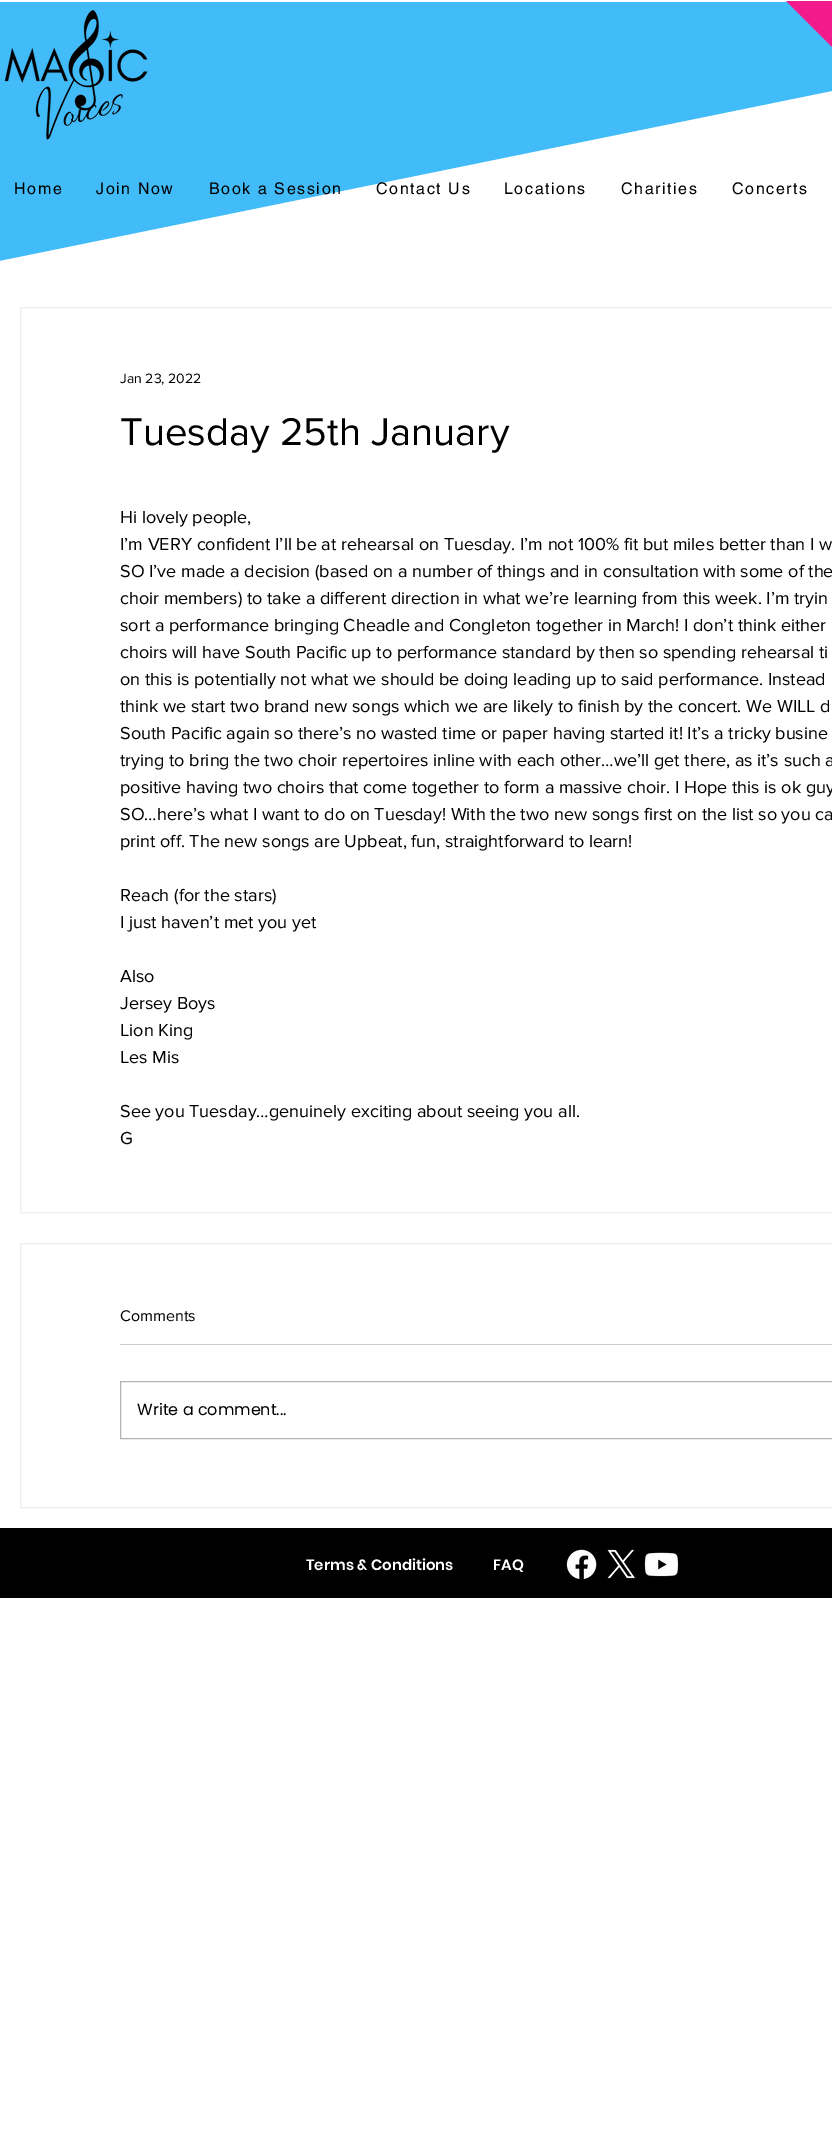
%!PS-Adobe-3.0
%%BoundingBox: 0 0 832 2150
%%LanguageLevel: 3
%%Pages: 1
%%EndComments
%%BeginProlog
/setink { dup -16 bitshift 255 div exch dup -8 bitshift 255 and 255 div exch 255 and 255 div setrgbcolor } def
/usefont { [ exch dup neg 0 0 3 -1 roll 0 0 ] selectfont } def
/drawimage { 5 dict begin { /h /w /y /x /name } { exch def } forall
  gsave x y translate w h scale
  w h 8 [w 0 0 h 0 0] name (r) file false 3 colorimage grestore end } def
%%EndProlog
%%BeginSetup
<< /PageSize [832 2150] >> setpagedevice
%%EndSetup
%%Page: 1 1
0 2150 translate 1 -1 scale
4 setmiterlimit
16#FFFFFF setink
0 0 832 2150 rectfill
16#42BCF9 setink
0 2 832 259 rectfill
16#FFFFFF setink
0 261 moveto 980 61 lineto 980 261 lineto closepath fill
(img1.raw) 4 10 144 130 drawimage
16#F31B8B setink
786 1 moveto 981 1 lineto 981 196 lineto closepath fill
/helvetica-Regular 16 usefont
16#000000 setink
14 194 moveto 1.6 0 (Home) ashow
96 194 moveto 1.6 0 (Join Now) ashow
209 194 moveto 1.6 0 (Book a Session) ashow
376 194 moveto 1.6 0 (Contact Us) ashow
504 194 moveto 1.6 0 (Locations) ashow
621 194 moveto 1.6 0 (Charities) ashow
732 194 moveto 1.6 0 (Concerts) ashow
16#EEECEC setink
20.5 307.5 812 905 rectstroke
/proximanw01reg-Regular 14 usefont
16#000000 setink
120 383 moveto (Jan 23, 2022) show
/proximanw01reg-Regular 40 usefont
120 445 moveto (Tuesday 25th January) show
/proximanw01reg-Regular 18 usefont
[
    [(Hi lovely people,) 120 523]
    [(I’m VERY confident I’ll be at rehearsal on Tuesday. I’m not 100% fit but miles better than I w) 120 550]
    [(SO I’ve made a decision \(based on a number of things and in consultation with some of the) 120 577]
    [(choir members\) to take a different direction in what we’re learning from this week. I’m tryin) 120 604]
    [(sort a performance bringing Cheadle and Congleton together in March! I don’t think either) 120 631]
    [(choirs will have South Pacific up to performance standard by then so spending rehearsal ti) 120 658]
    [(on this is potentially not what we should be doing leading up to said performance. Instead) 120 685]
    [(think we start two brand new songs which we are likely to finish by the concert. We WILL d) 120 712]
    [(South Pacific again so there’s no wasted time or paper having started it! It’s a tricky busine) 120 739]
    [(trying to bring the two choir repertoires inline with each other…we’ll get there, as it’s such a) 120 766]
    [(positive having two choirs that come together to form a massive choir. I Hope this is ok guy) 120 793]
    [(SO…here’s what I want to do on Tuesday! With the two new songs first on the list so you ca) 120 820]
    [(print off. The new songs are Upbeat, fun, straightforward to learn!) 120 847]
    [(Reach \(for the stars\)) 120 901]
    [(I just haven’t met you yet) 120 928]
    [(Also) 120 982]
    [(Jersey Boys) 120 1009]
    [(Lion King) 120 1036]
    [(Les Mis) 120 1063]
    [(See you Tuesday…genuinely exciting about seeing you all.) 120 1117]
    [(G) 120 1144]
] { aload pop moveto show } forall
16#EEECEC setink
20.5 1243.5 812 264 rectstroke
/proximanw01reg-Regular 16 usefont
16#000000 setink
120 1321 moveto (Comments) show
16#CCCCCC setink
120 1344 712 1 rectfill
16#B3B3B3 setink
120.5 1381.5 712 57 rectstroke
/Poppins-Regular 16 usefont
16#000000 setink
137 1415 moveto (Write a comment...) show
0 1528 832 70 rectfill
/Poppins-SemiBold 15 usefont
16#FFFFFF setink
306 1570 moveto (Terms & Conditions) show
493 1570 moveto (FAQ) show
(img2.raw) 566 1549 31 30 drawimage
(img3.raw) 607 1549 28 30 drawimage
(img4.raw) 644 1552 35 25 drawimage
showpage
%%EOF
